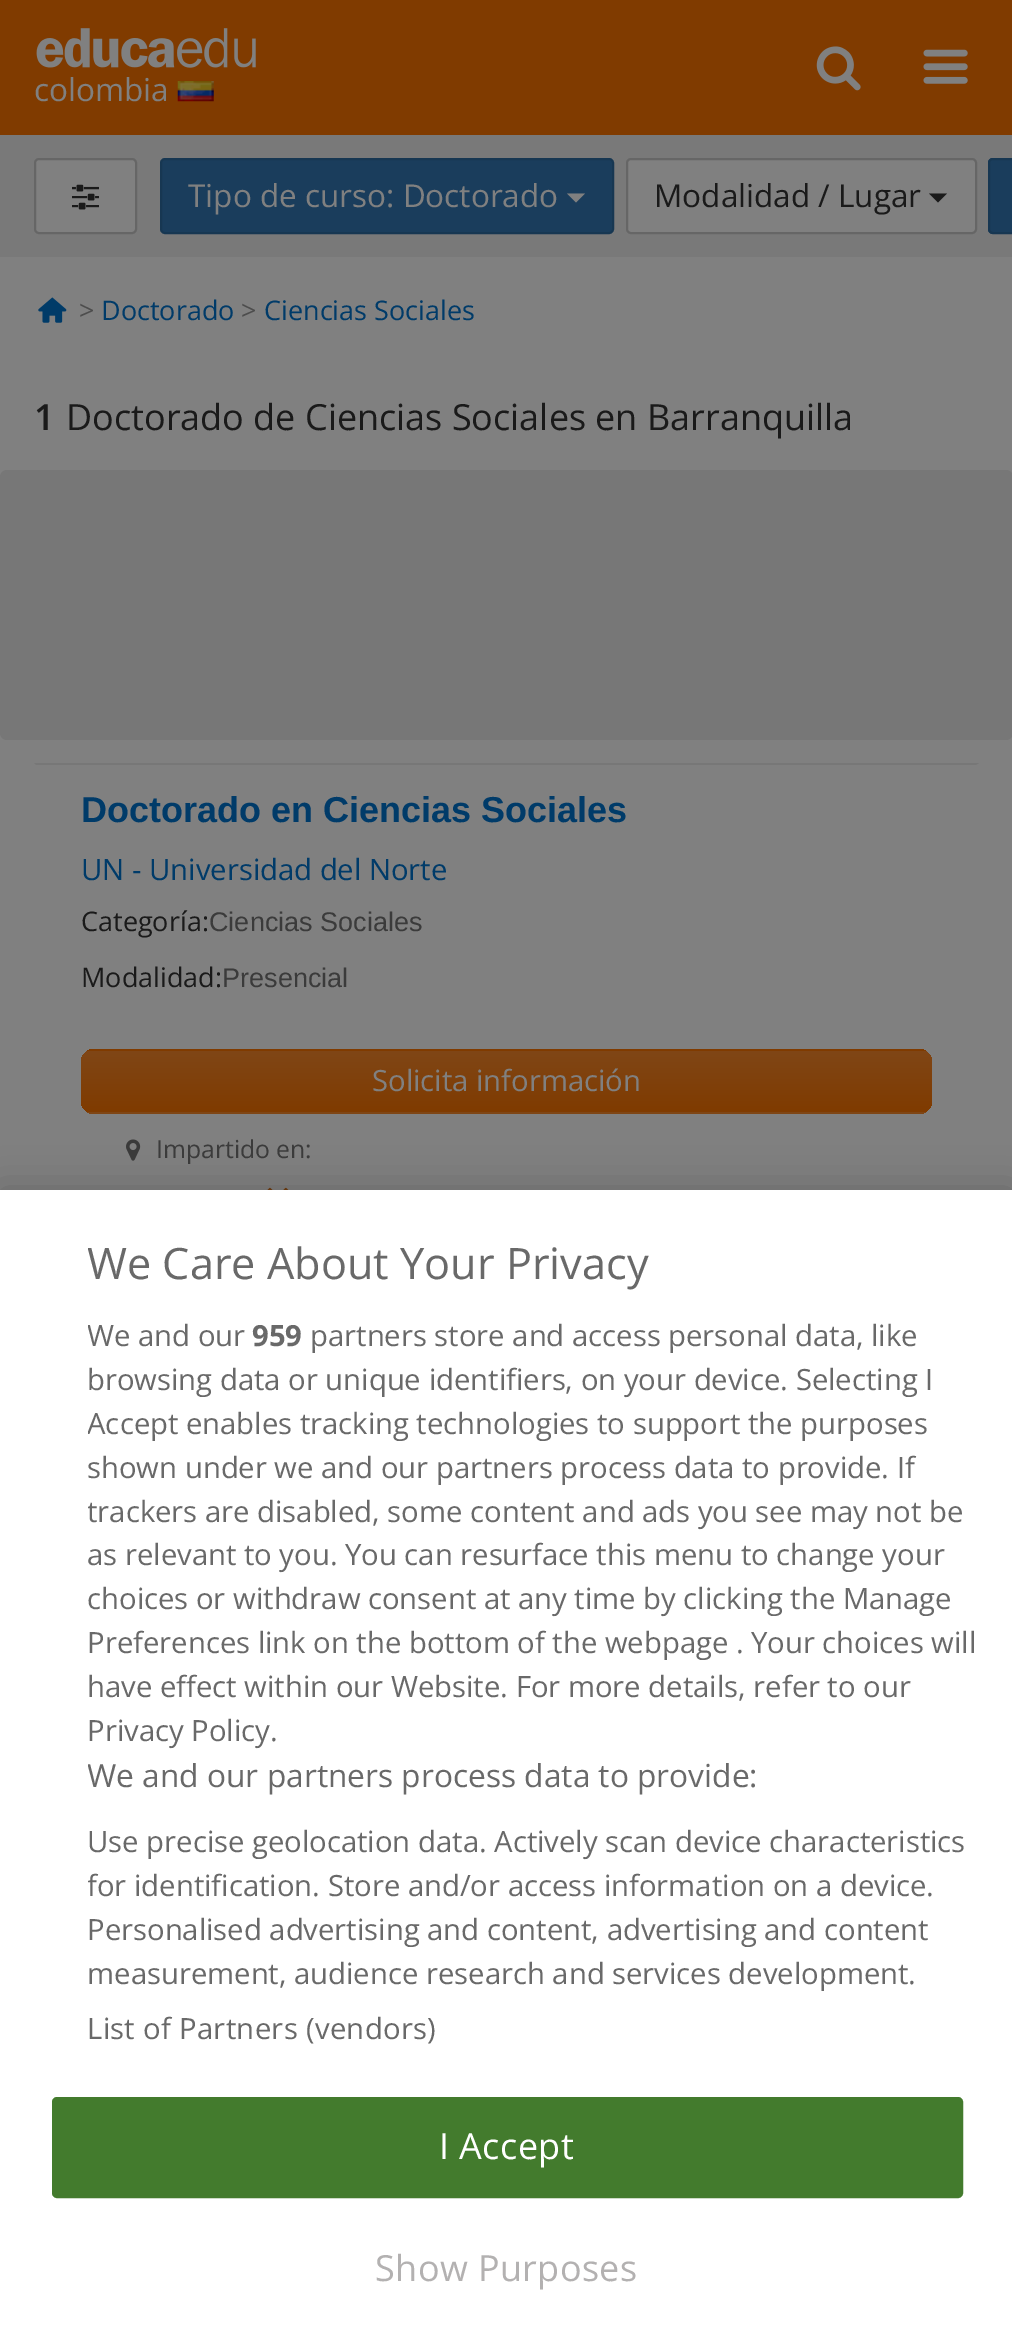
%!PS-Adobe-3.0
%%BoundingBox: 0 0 1012 2338
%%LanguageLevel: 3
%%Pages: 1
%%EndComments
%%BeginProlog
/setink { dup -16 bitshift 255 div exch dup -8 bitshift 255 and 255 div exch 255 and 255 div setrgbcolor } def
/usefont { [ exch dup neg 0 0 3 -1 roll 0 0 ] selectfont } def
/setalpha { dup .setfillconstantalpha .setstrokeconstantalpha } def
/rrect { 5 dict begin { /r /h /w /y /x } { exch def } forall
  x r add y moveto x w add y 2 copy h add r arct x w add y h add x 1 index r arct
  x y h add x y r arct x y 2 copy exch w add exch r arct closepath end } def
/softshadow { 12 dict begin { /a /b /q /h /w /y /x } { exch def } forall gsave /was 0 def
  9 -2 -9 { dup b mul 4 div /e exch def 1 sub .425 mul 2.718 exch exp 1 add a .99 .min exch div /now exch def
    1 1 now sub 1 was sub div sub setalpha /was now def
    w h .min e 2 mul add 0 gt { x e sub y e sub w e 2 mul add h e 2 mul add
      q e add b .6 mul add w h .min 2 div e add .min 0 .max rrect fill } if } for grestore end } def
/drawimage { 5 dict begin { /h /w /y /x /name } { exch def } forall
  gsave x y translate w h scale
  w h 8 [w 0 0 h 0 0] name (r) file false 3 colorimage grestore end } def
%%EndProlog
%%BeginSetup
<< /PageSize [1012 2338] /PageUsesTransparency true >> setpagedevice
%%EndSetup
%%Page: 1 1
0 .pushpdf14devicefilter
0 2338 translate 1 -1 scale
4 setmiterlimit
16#808080 setink
0 0 1012 2338 rectfill
16#803B00 setink
0 0 1012 135 rectfill
(img1.raw) 816 46 45 45 drawimage
(img2.raw) 923 49 45 35 drawimage
(img3.raw) 36 28 220 40 drawimage
/OpenSans-Regular 31.5 usefont
16#808080 setink
34 101 moveto (colombia) show
(img4.raw) 177 81 37 21 drawimage
16#797979 setink
0 135 1012 122 rectfill
16#808080 setink
35 159 101 74 4 rrect gsave fill grestore
16#666666 setink
2 setlinewidth
stroke
(img5.raw) 72 184 27 26 drawimage
16#1A3D5C setink
161 159 452 74 4 rrect gsave fill grestore
16#173752 setink
stroke
16#808080 setink
188 207 moveto (Tipo de curso: Doctorado) show
567 193.5 moveto 585 193.5 lineto 576 202.5 lineto closepath fill
627 159 349 74 4 rrect gsave fill grestore
16#666666 setink
stroke
16#1A1A1A setink
654 207 moveto (Modalidad / Lugar) show
929 193.5 moveto 947 193.5 lineto 938 202.5 lineto closepath fill
16#1A3D5C setink
993 158 moveto 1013 158 lineto 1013 234 lineto 993 234 lineto 990 234 988 232 988 229 curveto 988 163 lineto 988 160 990 158 993 158 curveto closepath fill
16#173752 setink
989 159 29 74 4 rrect stroke
(img6.raw) 38 297 29 26 drawimage
/OpenSans-Regular 27 usefont
16#4D4D4D setink
79 320 moveto (>) show
16#003B69 setink
101 320 moveto (Doctorado) show
16#4D4D4D setink
241 320 moveto (>) show
16#003B69 setink
264 320 moveto (Ciencias Sociales) show
/OpenSans-SemiBold 36 usefont
16#1A1A1A setink
34 430 moveto (1) show
/OpenSans-Regular 36 usefont
66 430 moveto (Doctorado de Ciencias Sociales en Barranquilla) show
16#777777 setink
0 470 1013 270 7 rrect fill
34 763 moveto 979 763 lineto 976 765 lineto 36 765 lineto closepath fill
/LiberationSans-Bold 36 usefont
16#003B69 setink
81 822 moveto (Doctorado en Ciencias Sociales) show
/OpenSans-Regular 29.25 usefont
81 880 moveto (UN - Universidad del Norte) show
/OpenSans-Regular 27 usefont
16#1A1A1A setink
81 931 moveto (Categoría:) show
/LiberationSans-Regular 27 usefont
16#3B3B3B setink
209 931 moveto (Ciencias Sociales) show
/OpenSans-Regular 27 usefont
16#1A1A1A setink
81 987 moveto (Modalidad:) show
/LiberationSans-Regular 27 usefont
16#3B3B3B setink
222 987 moveto (Presencial) show
gsave
81 1049 851 65 14 rrect clip newpath
gsave 81 1049 moveto 932 1049 lineto 932 1051 lineto 81 1051 lineto closepath clip newpath
<< /ShadingType 2 /ColorSpace /DeviceRGB /Coords [506 990 506 1051] /Extend [true true] /Function << /FunctionType 2 /Domain [0 1] /C0 [0.498 0.275 0.086] /C1 [0.502 0.231 0] /N 1 >> >> shfill grestore
gsave 81 1051 moveto 932 1051 lineto 932 1112 lineto 81 1112 lineto closepath clip newpath
<< /ShadingType 2 /ColorSpace /DeviceRGB /Coords [506 1051 506 1112] /Extend [true true] /Function << /FunctionType 2 /Domain [0 1] /C0 [0.498 0.275 0.086] /C1 [0.502 0.231 0] /N 1 >> >> shfill grestore
gsave 81 1112 moveto 932 1112 lineto 932 1114 lineto 81 1114 lineto closepath clip newpath
<< /ShadingType 2 /ColorSpace /DeviceRGB /Coords [506 1112 506 1172] /Extend [true true] /Function << /FunctionType 2 /Domain [0 1] /C0 [0.498 0.275 0.086] /C1 [0.502 0.231 0] /N 1 >> >> shfill grestore
grestore
/OpenSans-Regular 29.25 usefont
16#808080 setink
372 1091 moveto (Solicita información) show
(img7.raw) 126 1139 15 22 drawimage
/OpenSans-Regular 24.75 usefont
16#3B3B3B setink
156 1158 moveto (Impartido en:) show
(img8.raw) 267 1187 22 3 drawimage
16#000000 setink
0 1190 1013 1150 0 20 0.2 softshadow
16#FFFFFF setink
0 1190 1012 1148 rectfill
gsave
88 1235 911 840 rectclip
/OpenSans-Regular 43.25 usefont
16#696969 setink
87 1279 moveto (We Care About Your Privacy) show
/OpenSans-Regular 29.25 usefont
87 1346 moveto (We and our) show
grestore
/OpenSans-Bold 29.25 usefont
16#696969 setink
252 1346 moveto (959) show
/OpenSans-Regular 29.25 usefont
310 1346 moveto (partners store and access personal data, like) show
87 1390 moveto (browsing data or unique identifiers, on your device. Selecting I) show
gsave
88 1235 911 840 rectclip
87 1434 moveto (Accept enables tracking technologies to support the purposes) show
grestore
87 1478 moveto (shown under we and our partners process data to provide. If) show
gsave
88 1235 911 840 rectclip
87 1522 moveto (trackers are disabled, some content and ads you see may not be) show
grestore
[
    [(as relevant to you. You can resurface this menu to change your) 87 1565]
    [(choices or withdraw consent at any time by clicking the Manage) 87 1609]
    [(Preferences link on the bottom of the webpage . Your choices will) 87 1653]
    [(have effect within our Website. For more details, refer to our) 87 1697]
    [(Privacy Policy.) 87 1741]
] { aload pop moveto show } forall
gsave
88 1235 911 840 rectclip
/OpenSans-Regular 31.7 usefont
87 1787 moveto (We and our partners process data to provide:) show
grestore
87 1852 moveto (Use precise geolocation data. Actively scan device characteristics) show
gsave
88 1235 911 840 rectclip
87 1896 moveto (for identification. Store and/or access information on a device.) show
grestore
87 1940 moveto (Personalised advertising and content, advertising and content) show
87 1984 moveto (measurement, audience research and services development.) show
87 2039 moveto 0.3 0 (List of Partners \(vendors\)) ashow
16#437B2D setink
53 2098 909 99 4 rrect gsave fill grestore
stroke
/OpenSans-Regular 36 usefont
16#FFFFFF setink
439 2159 moveto 0.4 0 (I Accept) ashow
16#B3B1B1 setink
375 2281 moveto 0.4 0 (Show Purposes) ashow
.poppdf14devicefilter showpage
%%EOF
